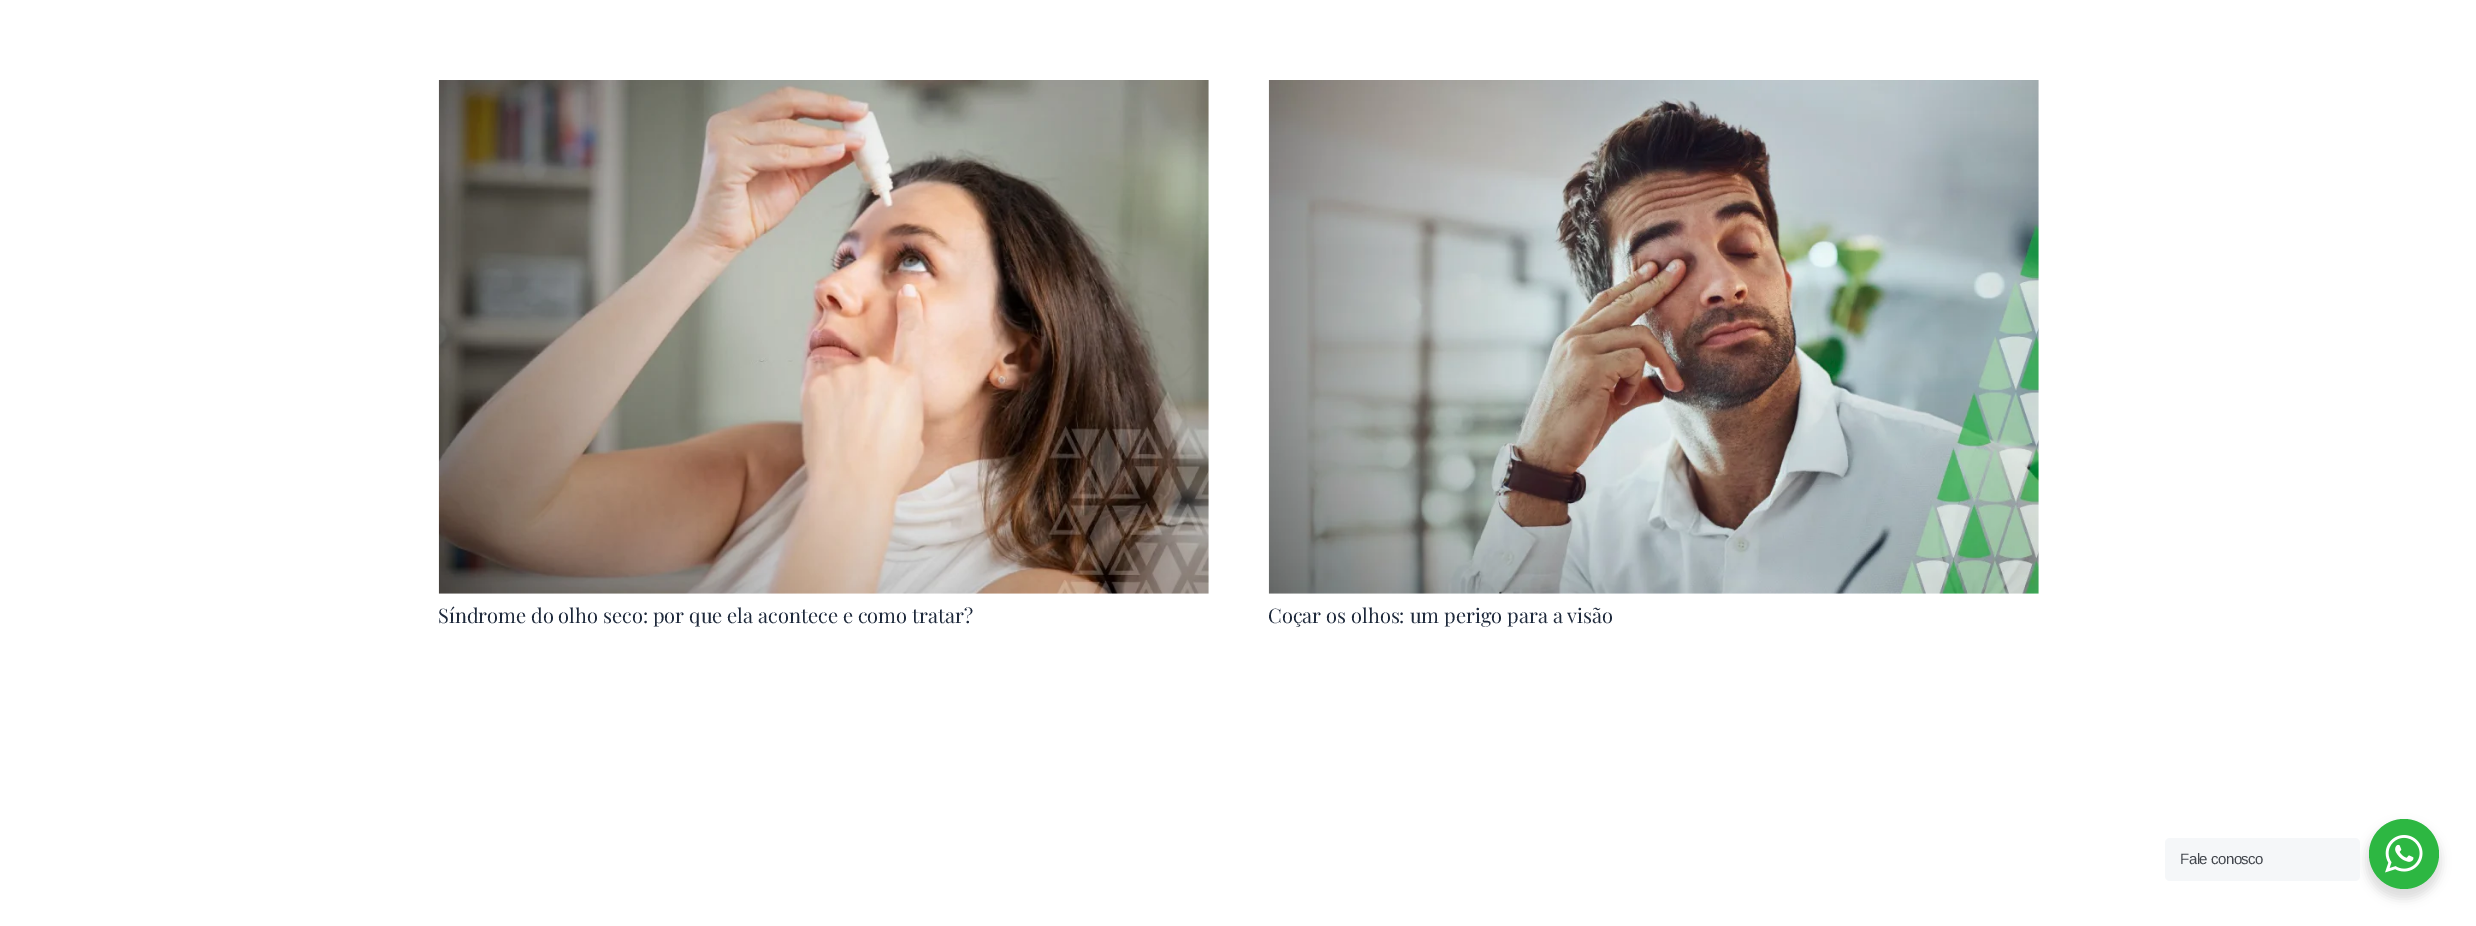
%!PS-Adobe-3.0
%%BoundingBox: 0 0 2476 926
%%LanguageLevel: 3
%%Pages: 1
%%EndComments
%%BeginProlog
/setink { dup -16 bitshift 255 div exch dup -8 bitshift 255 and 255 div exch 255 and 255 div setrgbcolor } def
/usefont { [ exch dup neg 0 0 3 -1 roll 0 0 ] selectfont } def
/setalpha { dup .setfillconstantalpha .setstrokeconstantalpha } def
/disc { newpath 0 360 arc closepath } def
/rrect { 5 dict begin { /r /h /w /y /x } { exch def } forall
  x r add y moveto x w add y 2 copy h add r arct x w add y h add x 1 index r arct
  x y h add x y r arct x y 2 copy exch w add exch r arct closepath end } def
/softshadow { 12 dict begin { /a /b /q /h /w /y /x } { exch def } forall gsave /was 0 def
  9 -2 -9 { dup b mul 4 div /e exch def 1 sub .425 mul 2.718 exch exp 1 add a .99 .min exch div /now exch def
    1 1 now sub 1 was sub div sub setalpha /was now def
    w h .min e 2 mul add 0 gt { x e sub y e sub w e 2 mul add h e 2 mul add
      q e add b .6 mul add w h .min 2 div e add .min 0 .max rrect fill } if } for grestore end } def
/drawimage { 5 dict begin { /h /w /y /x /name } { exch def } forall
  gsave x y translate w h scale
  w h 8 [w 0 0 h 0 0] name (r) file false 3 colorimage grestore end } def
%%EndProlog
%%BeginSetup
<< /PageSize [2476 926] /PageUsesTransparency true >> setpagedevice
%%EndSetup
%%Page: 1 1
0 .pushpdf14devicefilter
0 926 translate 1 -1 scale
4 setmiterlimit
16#FFFFFF setink
0 0 2476 926 rectfill
(img1.raw) 438 80 771 514 drawimage
/PlayfairDisplay-Regular 20 usefont
16#1E293B setink
438 623 moveto (Síndrome do olho seco: por que ela acontece e como tratar?) show
(img2.raw) 1268 80 771 514 drawimage
1268 623 moveto (Coçar os olhos: um perigo para a visão) show
16#000000 setink
2366 824 75 75 37.5 5 0.14 softshadow
16#F5F7F9 setink
2165 838 195 43 5 rrect fill
/LiberationSans-Regular 15 usefont
16#43474E setink
2180 864 moveto -0.5 0 (Fale conosco) ashow
16#2DB742 setink
2404 854 35 disc fill
(img3.raw) 2385 835 38 38 drawimage
.poppdf14devicefilter showpage
%%EOF
